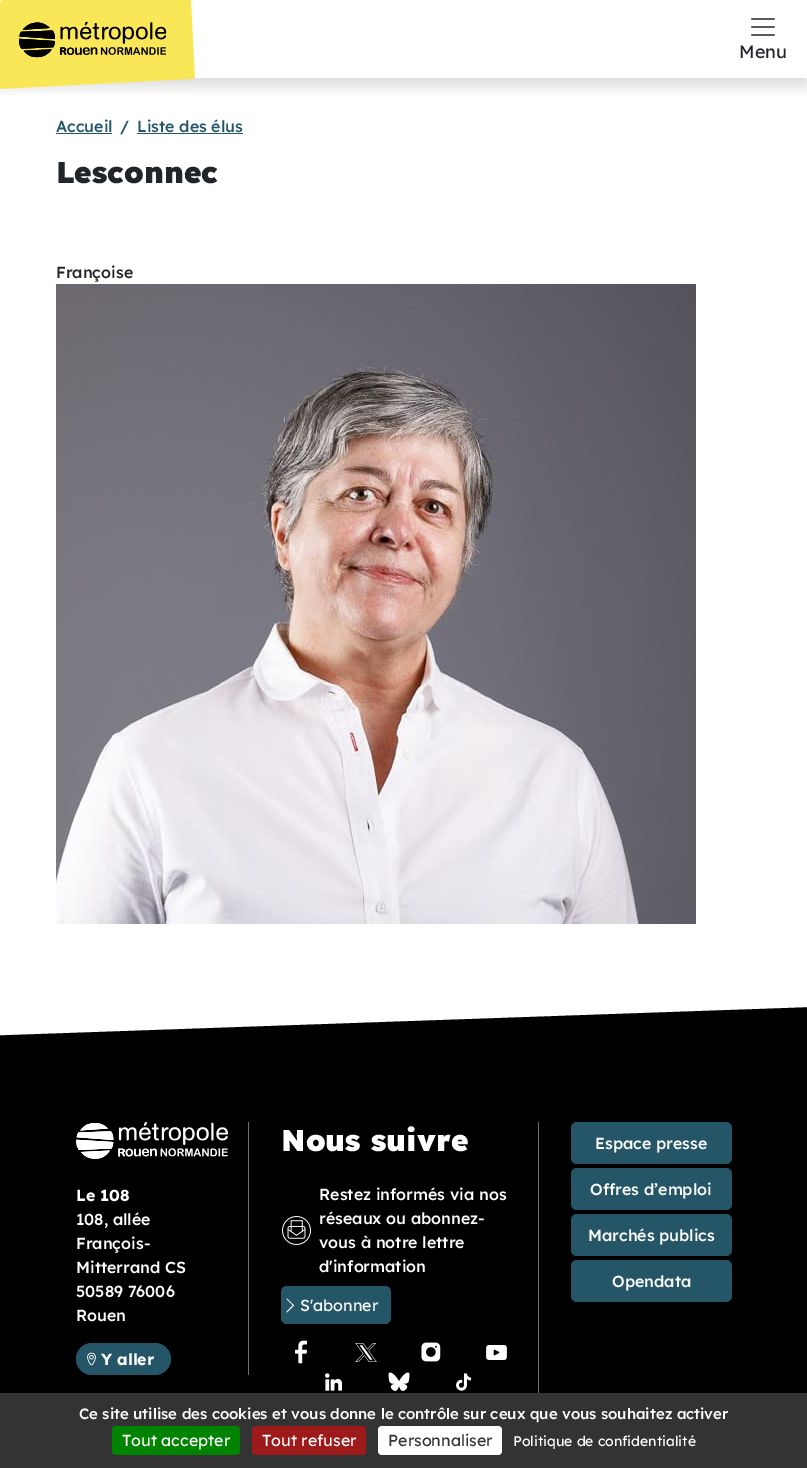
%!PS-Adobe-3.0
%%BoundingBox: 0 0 807 1468
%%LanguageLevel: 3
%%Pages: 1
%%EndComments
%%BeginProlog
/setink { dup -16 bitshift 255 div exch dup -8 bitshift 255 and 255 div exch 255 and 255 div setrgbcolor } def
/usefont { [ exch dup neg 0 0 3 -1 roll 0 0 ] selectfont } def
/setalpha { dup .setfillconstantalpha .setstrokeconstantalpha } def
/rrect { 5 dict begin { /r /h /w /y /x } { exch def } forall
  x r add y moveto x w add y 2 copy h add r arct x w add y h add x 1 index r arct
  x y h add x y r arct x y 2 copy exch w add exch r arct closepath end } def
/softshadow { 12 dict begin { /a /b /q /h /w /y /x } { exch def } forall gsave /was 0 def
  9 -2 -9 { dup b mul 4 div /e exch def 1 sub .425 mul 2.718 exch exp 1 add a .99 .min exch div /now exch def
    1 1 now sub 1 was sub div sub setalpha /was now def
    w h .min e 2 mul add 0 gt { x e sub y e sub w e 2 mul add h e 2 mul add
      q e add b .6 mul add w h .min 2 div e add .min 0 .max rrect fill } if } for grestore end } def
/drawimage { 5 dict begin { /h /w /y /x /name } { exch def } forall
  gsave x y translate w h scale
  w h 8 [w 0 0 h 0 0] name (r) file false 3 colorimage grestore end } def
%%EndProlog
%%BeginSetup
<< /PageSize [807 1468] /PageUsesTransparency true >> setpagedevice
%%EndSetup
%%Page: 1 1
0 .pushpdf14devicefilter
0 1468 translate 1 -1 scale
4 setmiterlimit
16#FFFFFF setink
0 0 807 1468 rectfill
gsave
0 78 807 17 rectclip
16#000000 setink
0 8 807 78 0 8 0.15 softshadow
grestore
(img1.raw) 0 0 195 89 drawimage
(img2.raw) 751 18 24 18 drawimage
/Lexend-Regular 18 usefont
16#212529 setink
739 58 moveto (Menu) show
/Lexend-Medium 16 usefont
16#255667 setink
56 132 moveto (Accueil) show
56 133 56 1 rectfill
120 132 moveto (/) show
137 132 moveto (Liste des élus) show
137 133 106 1 rectfill
/Lexend-Black 30 usefont
16#212529 setink
56 183 moveto (Lesconnec) show
/Lexend-Medium 16 usefont
56 278 moveto (Françoise) show
(img3.raw) 56 284 640 640 drawimage
16#000000 setink
-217 1043 moveto 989 1001 lineto 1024 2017 lineto -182 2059 lineto closepath fill
16#707070 setink
248 1122 1 253 rectfill
(img4.raw) 76 1122 152 37 drawimage
/Lexend-Bold 16 usefont
16#FFFFFF setink
76 1201 moveto (Le 108) show
/Lexend-Medium 16 usefont
[
    [(108, allée) 76 1225]
    [(François-) 76 1249]
    [(Mitterrand CS) 76 1273]
    [(50589 76006) 76 1297]
    [(Rouen) 76 1321]
] { aload pop moveto show } forall
16#255667 setink
76 1343 95 32 16 rrect fill
(img5.raw) 87 1352 9 14 drawimage
/Lexend-Bold 16 usefont
16#FFFFFF setink
101 1365 moveto (Y aller) show
16#707070 setink
538 1122 1 271 rectfill
/Lexend-Black 30 usefont
16#FFFFFF setink
281 1151 moveto (Nous suivre) show
(img6.raw) 282 1216 29 29 drawimage
/Lexend-Medium 16 usefont
[
    [(Restez informés via nos) 319 1200]
    [(réseaux ou abonnez-) 319 1224]
    [(vous à notre lettre) 319 1248]
    [(d'information) 319 1272]
] { aload pop moveto show } forall
16#255667 setink
281 1286 110 38 6 rrect fill
16#FFFFFF setink
287 1298.5 moveto 294 1305.5 lineto 293.5 1306 lineto 286.5 1299 lineto closepath fill
293.5 1304.5 moveto 294 1305.5 lineto 287 1312.5 lineto 286.5 1312 lineto closepath fill
/Lexend-Regular 16 usefont
300 1311 moveto (S'abonner) show
(img7.raw) 295 1340 12 24 drawimage
(img8.raw) 355 1343 22 19 drawimage
(img9.raw) 421 1342 20 20 drawimage
(img10.raw) 486 1345 21 15 drawimage
(img11.raw) 325 1373 17 18 drawimage
(img12.raw) 388 1372 22 19 drawimage
(img13.raw) 456 1373 16 18 drawimage
16#255667 setink
571 1122 161 42 6 rrect fill
/Lexend-Medium 16 usefont
16#FFFFFF setink
595 1149 moveto (Espace presse) show
16#255667 setink
571 1168 161 42 6 rrect fill
16#FFFFFF setink
590 1195 moveto (Offres d’emploi) show
16#255667 setink
571 1214 161 42 6 rrect fill
16#FFFFFF setink
588 1241 moveto (Marchés publics) show
16#255667 setink
571 1260 161 42 6 rrect fill
16#FFFFFF setink
612 1287 moveto (Opendata) show
16#333333 setink
0 1393 807 75 rectfill
/Lexend-Medium 15 usefont
16#FFFFFF setink
79 1419 moveto (Ce site utilise des cookies et vous donne le contrôle sur ceux que vous souhaitez activer) show
16#008300 setink
112 1426 128 29 4 rrect fill
/Lexend-Regular 16 usefont
16#FFFFFF setink
122 1446 moveto (Tout accepter) show
16#9C1A1A setink
252 1426 114 29 4 rrect fill
16#FFFFFF setink
262 1446 moveto (Tout refuser) show
378 1426 124 29 4 rrect fill
16#333333 setink
388 1446 moveto (Personnaliser) show
/Lexend-Regular 14 usefont
16#FFFFFF setink
513 1446 moveto (Politique de confidentialité) show
.poppdf14devicefilter showpage
%%EOF
